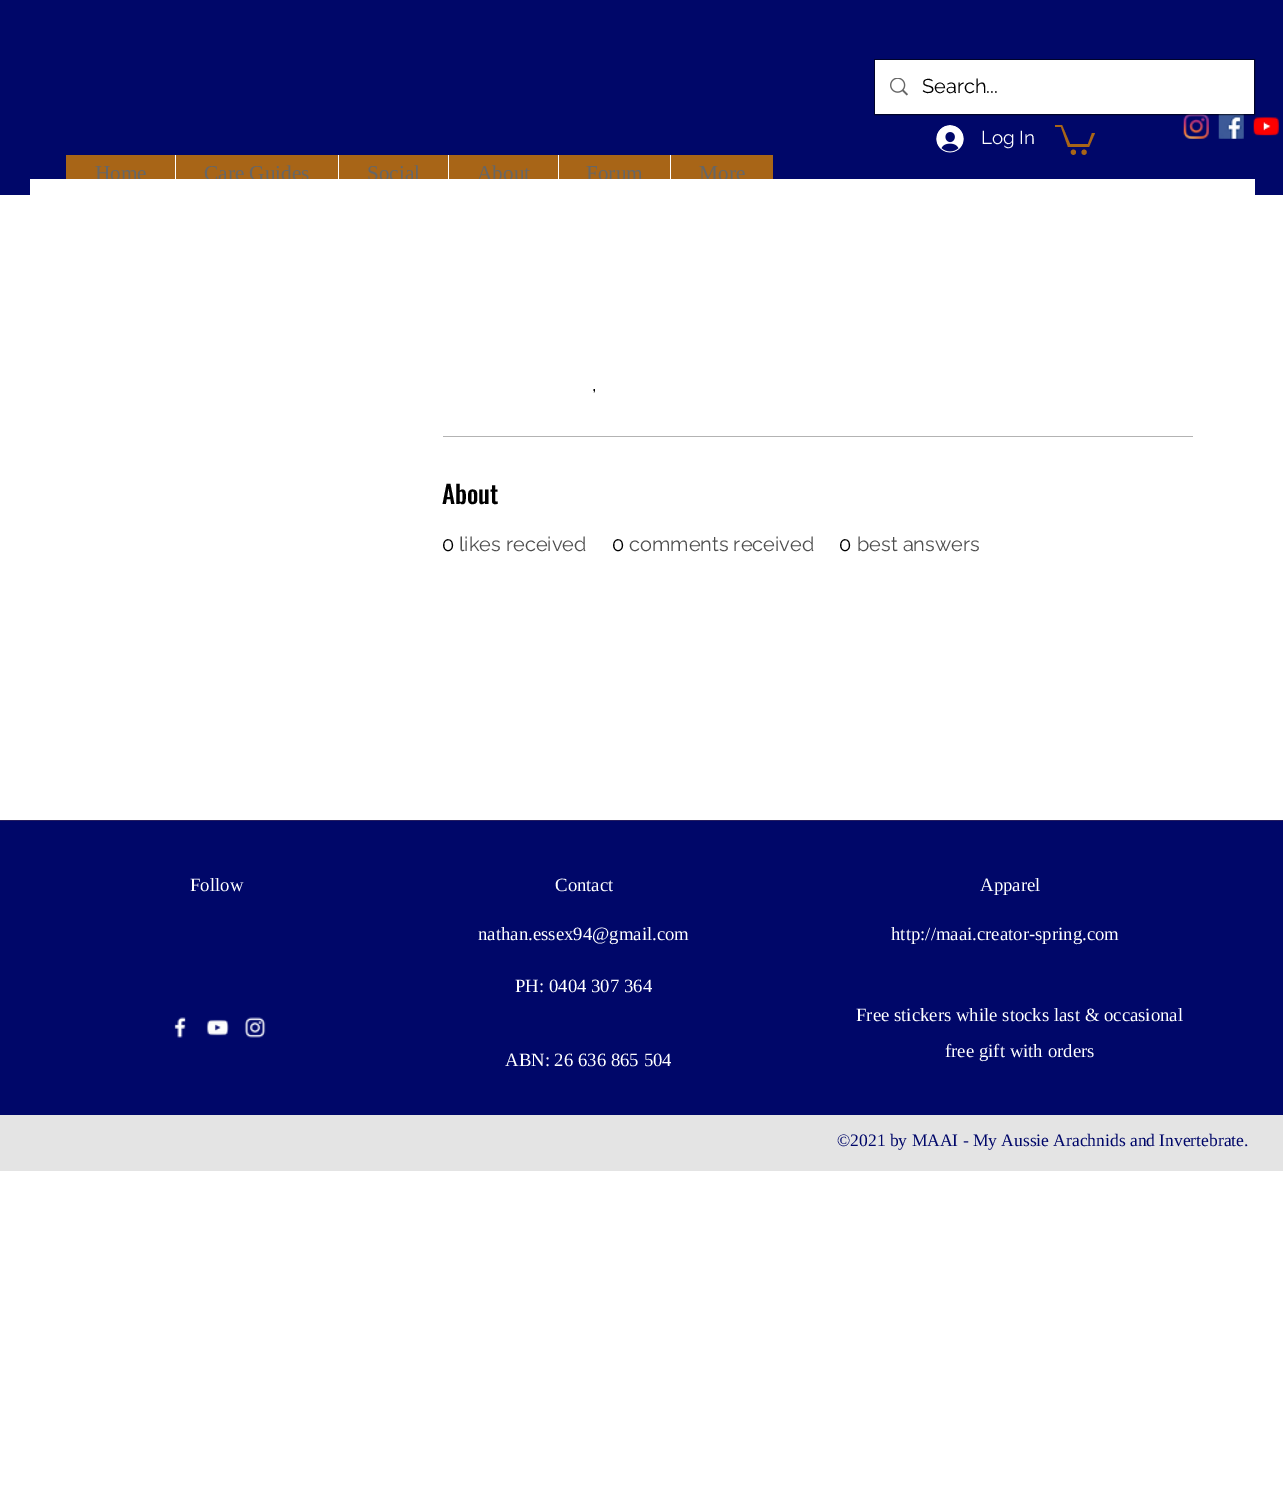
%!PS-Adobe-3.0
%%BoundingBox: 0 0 1283 1494
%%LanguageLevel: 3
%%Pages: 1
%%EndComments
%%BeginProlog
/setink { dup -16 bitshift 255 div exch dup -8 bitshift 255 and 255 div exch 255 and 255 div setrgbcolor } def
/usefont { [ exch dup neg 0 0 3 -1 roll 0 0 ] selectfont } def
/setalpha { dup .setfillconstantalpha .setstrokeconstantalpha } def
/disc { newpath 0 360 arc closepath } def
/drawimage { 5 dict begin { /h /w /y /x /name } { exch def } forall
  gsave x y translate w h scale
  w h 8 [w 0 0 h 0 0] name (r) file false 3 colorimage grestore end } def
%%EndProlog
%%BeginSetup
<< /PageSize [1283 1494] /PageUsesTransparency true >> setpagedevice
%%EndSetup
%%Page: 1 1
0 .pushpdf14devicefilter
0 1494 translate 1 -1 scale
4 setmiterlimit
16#FFFFFF setink
0 0 1283 1494 rectfill
16#000769 setink
0 0 1283 195 rectfill
(img3.raw) 1183 114 26 25 drawimage
(img4.raw) 1218 114 26 25 drawimage
0.6 setalpha
16#000000 setink
874.5 59.5 380 55 rectstroke
1 setalpha
16#FFFFFF setink
875 60 379 54 rectfill
(img1.raw) 890 78 18 18 drawimage
/Raleway-Regular 20 usefont
16#000000 setink
922 93 moveto (Search...) show
(img2.raw) 936 125 28 28 drawimage
/Raleway-Regular 18.75 usefont
16#FFFFFF setink
981 144 moveto (Log In) show
16#A86517 setink
1095 133 moveto 1089 147 lineto 1068 147 lineto 1061 127 lineto 1055 127 lineto 1055 125 lineto 1062 125 lineto 1070 144 lineto 1088 144 lineto 1092 133 lineto fill
1084.1 152.2 2.6 disc fill
1073.4 152.2 2.6 disc fill
(img5.raw) 1253 116 26 20 drawimage
66 155 707 24 rectfill
/LiberationSerif-Regular 21.25 usefont
16#666666 setink
95 180 moveto (Home) show
16#FFFFFF setink
175 155 1 24 rectfill
16#666666 setink
204 180 moveto (Care Guides) show
16#FFFFFF setink
338 155 1 24 rectfill
16#666666 setink
367 180 moveto (Social) show
16#FFFFFF setink
448 155 1 24 rectfill
16#666666 setink
477 180 moveto (About) show
16#FFFFFF setink
558 155 1 24 rectfill
16#666666 setink
586 180 moveto (Forum) show
16#FFFFFF setink
670 155 1 24 rectfill
16#666666 setink
699 180 moveto (More) show
16#FFFFFF setink
30 179 1225 16 rectfill
/Raleway-Regular 20 usefont
16#000000 setink
592 391 moveto (,) show
16#B3B3B3 setink
443 436 750 1 rectfill
/Oswald-Medium 25 usefont
16#000000 setink
442 504 moveto (About) show
/Raleway-Regular 20 usefont
442 551 moveto (0) show
16#4D4D4D setink
459 551 moveto (likes received) show
16#000000 setink
612 551 moveto (0) show
16#4D4D4D setink
629 551 moveto (comments received) show
16#000000 setink
839 551 moveto (0) show
16#4D4D4D setink
857 551 moveto (best answers) show
16#000769 setink
0 821 1283 294 rectfill
16#261D5F setink
0 820 1283 1 rectfill
/LiberationSerif-Regular 18.75 usefont
16#FFFFFF setink
[
    [(Follow) 190 891]
    [(Contact) 555 891]
    [(Apparel) 980 891]
    [(nathan.essex94@gmail.com) 478 940]
    [(http://maai.creator-spring.com) 891 940]
    [(PH: 0404 307 364) 515 992]
] { aload pop moveto show } forall
(img6.raw) 174 1017 12 21 drawimage
(img7.raw) 206 1019 23 17 drawimage
(img8.raw) 244 1017 22 21 drawimage
[
    [(Free stickers while stocks last & occasional) 856 1021]
    [(free gift with orders) 945 1057]
    [(ABN: 26 636 865 504) 505 1066]
] { aload pop moveto show } forall
16#E4E4E4 setink
0 1115 1283 56 rectfill
/LiberationSerif-Regular 17.5 usefont
16#000769 setink
837 1146 moveto (©2021 by MAAI - My Aussie Arachnids and Invertebrate.) show
.poppdf14devicefilter showpage
%%EOF
